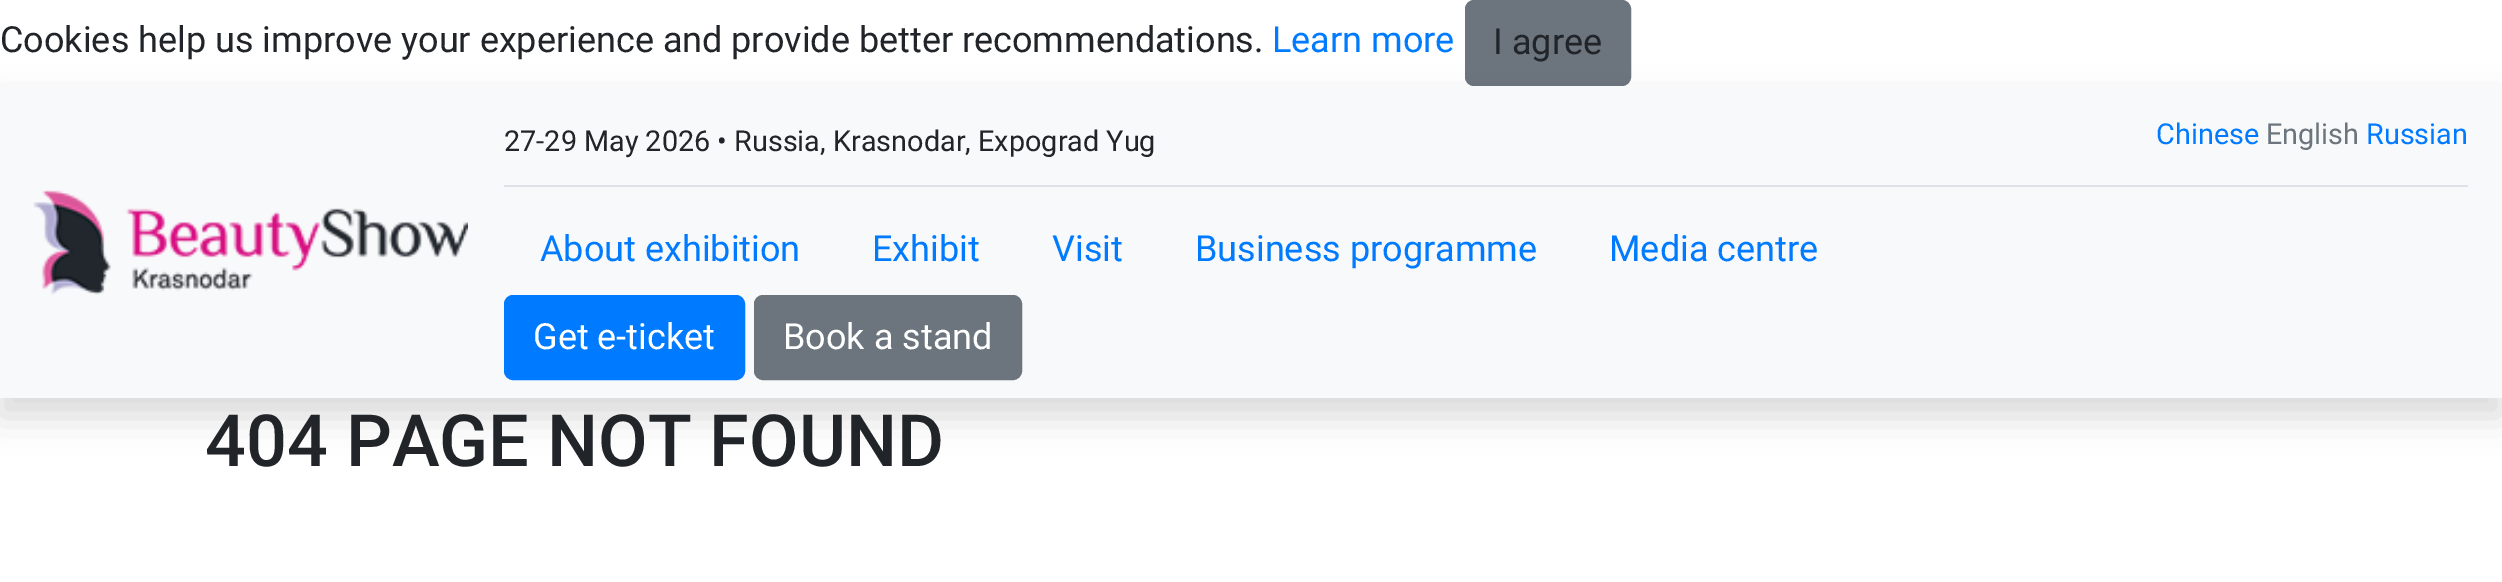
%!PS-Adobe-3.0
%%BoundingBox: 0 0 2502 582
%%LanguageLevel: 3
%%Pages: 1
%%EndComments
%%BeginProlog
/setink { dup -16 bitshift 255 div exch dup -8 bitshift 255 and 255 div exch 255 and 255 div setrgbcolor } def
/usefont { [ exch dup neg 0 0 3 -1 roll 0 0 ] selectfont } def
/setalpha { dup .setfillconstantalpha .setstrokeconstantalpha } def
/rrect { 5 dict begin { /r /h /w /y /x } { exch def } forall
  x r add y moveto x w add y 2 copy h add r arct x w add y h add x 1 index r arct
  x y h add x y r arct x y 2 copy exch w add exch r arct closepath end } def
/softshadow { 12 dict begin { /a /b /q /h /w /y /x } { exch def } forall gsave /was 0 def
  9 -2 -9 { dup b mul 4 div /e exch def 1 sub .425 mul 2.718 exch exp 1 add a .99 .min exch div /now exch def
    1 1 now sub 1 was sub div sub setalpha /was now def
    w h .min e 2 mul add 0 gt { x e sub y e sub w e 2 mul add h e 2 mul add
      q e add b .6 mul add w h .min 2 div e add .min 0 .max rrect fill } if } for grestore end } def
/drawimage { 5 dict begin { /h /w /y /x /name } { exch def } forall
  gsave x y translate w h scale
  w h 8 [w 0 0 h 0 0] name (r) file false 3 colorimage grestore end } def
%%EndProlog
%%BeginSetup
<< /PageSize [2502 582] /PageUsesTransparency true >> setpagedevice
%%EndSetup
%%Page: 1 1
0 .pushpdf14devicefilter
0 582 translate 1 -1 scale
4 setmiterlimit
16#FFFFFF setink
0 0 2502 582 rectfill
/Roboto-Regular 36 usefont
16#212529 setink
0 52 moveto (Cookies help us improve your experience and provide better recommendations.) show
16#007BFF setink
1272 52 moveto (Learn more) show
16#6C757D setink
1466 1 164 84 8 rrect gsave fill grestore
2 setlinewidth
stroke
16#212529 setink
1493 54 moveto (I agree) show
16#000000 setink
0 104 2502 312 0 18 0.15 softshadow
16#F8F9FA setink
0 86 2502 312 rectfill
(img1.raw) 33 190 435 105 drawimage
16#DEE2E6 setink
504 185 1964 2 rectfill
/Roboto-Regular 28.8 usefont
16#212529 setink
504 151 moveto (27-29 May 2026 • Russia, Krasnodar, Expograd Yug) show
16#007BFF setink
2156 144 moveto (Chinese) show
16#6C757D setink
2266 144 moveto (English) show
16#007BFF setink
2366 144 moveto (Russian) show
/Roboto-Regular 36 usefont
[
    [(About exhibition) 540 261]
    [(Exhibit) 872 261]
    [(Visit) 1052 261]
    [(Business programme) 1195 261]
    [(Media centre) 1609 261]
] { aload pop moveto show } forall
505 296 239 83 8 rrect gsave fill grestore
stroke
16#FFFFFF setink
533 349 moveto (Get e-ticket) show
16#6C757D setink
755 296 266 83 8 rrect gsave fill grestore
stroke
16#FFFFFF setink
783 349 moveto (Book a stand) show
/Roboto-Medium 72 usefont
16#212529 setink
205 466 moveto (404 PAGE NOT FOUND) show
.poppdf14devicefilter showpage
%%EOF
